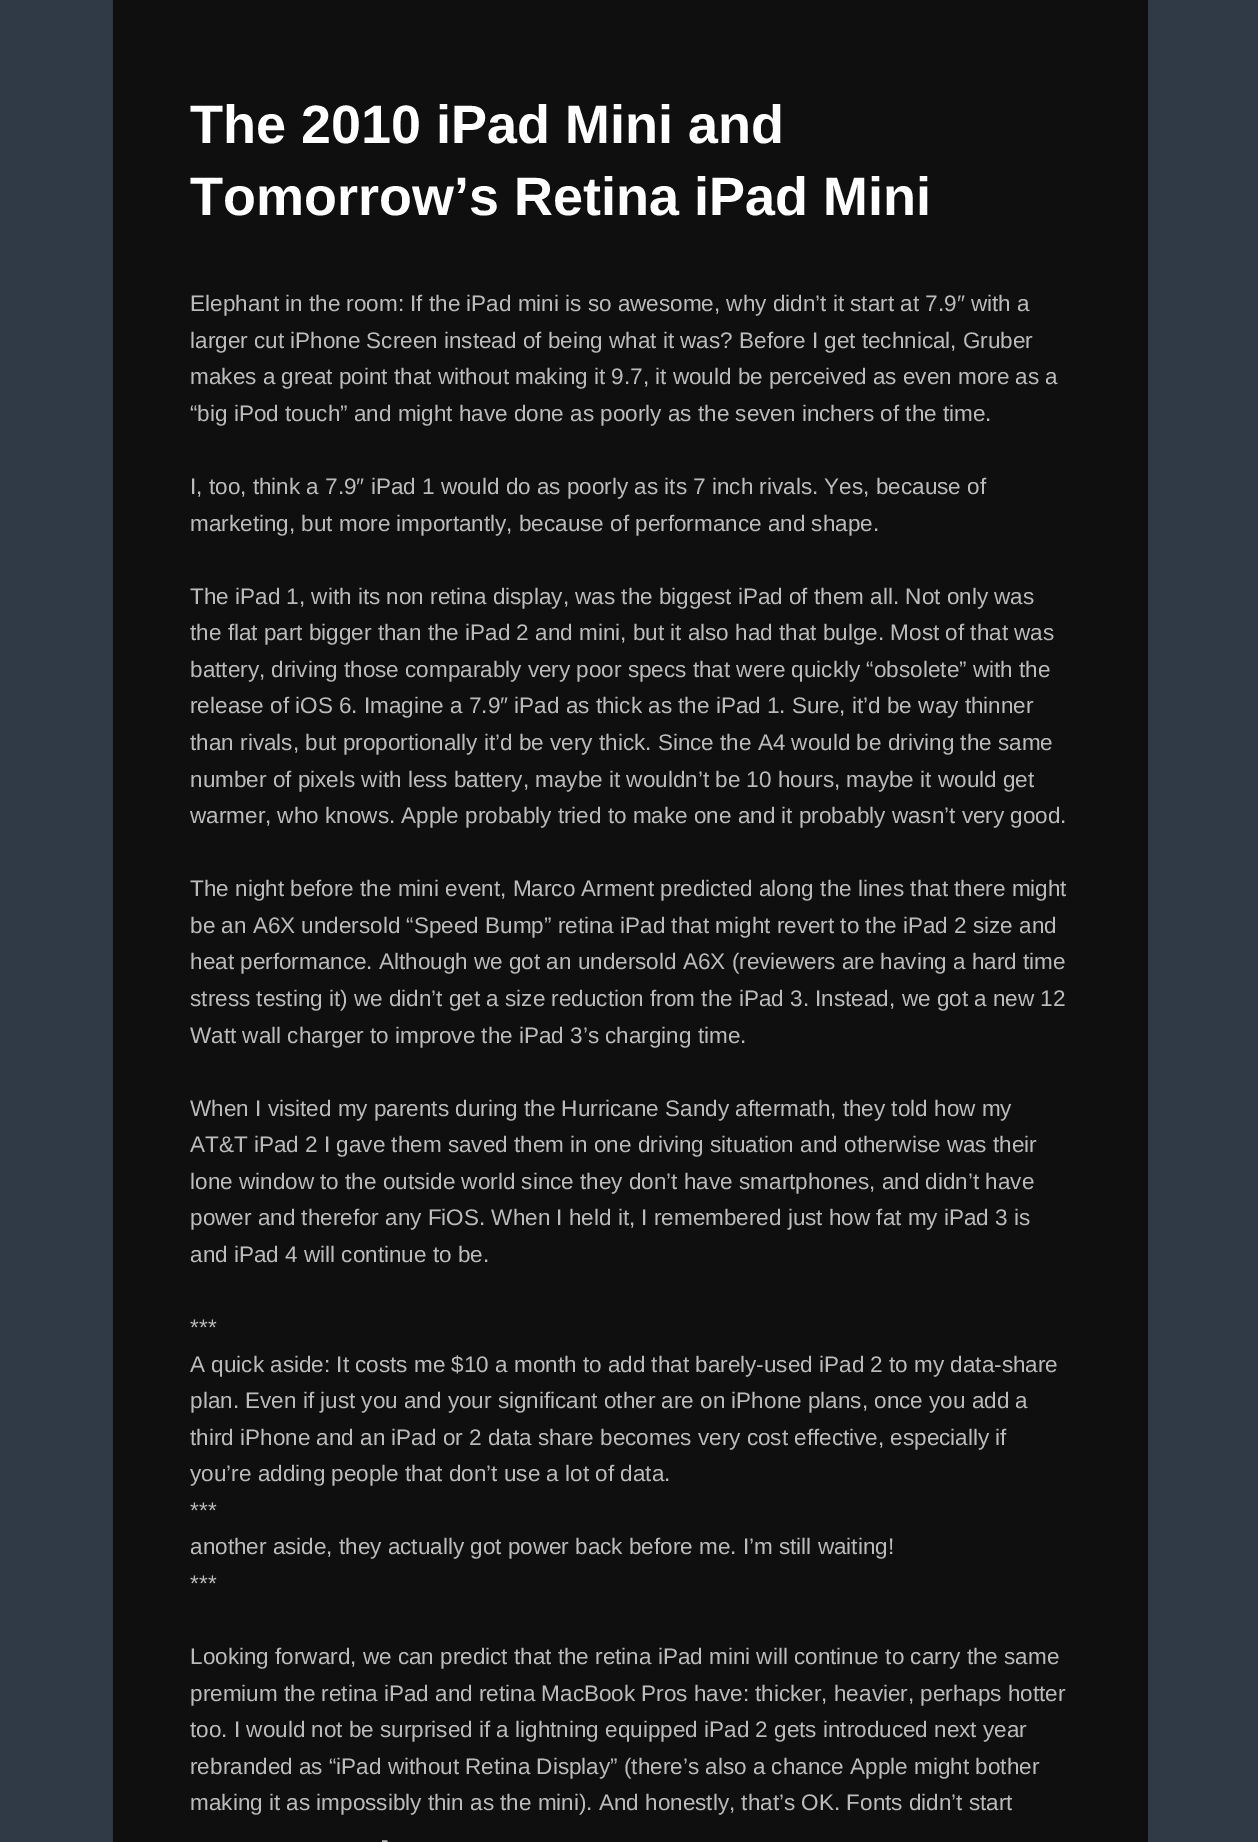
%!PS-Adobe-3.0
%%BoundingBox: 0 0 1258 1842
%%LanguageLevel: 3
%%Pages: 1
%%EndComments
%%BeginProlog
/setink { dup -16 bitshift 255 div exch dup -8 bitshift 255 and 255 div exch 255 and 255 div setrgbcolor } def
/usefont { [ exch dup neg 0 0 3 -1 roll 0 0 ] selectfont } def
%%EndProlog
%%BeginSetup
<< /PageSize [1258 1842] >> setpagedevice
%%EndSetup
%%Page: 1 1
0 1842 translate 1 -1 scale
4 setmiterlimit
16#303A46 setink
0 0 1258 1842 rectfill
16#0F0F0F setink
113 0 1035 1842 rectfill
/LiberationSans-Bold 54 usefont
16#FFFFFF setink
190 143 moveto (The 2010 iPad Mini and) show
190 215 moveto (Tomorrow’s Retina iPad Mini) show
/LiberationSans-Regular 22.5 usefont
16#BBBBBB setink
[
    [(Elephant in the room: If the iPad mini is so awesome, why didn’t it start at 7.9″ with a) 190 311]
    [(larger cut iPhone Screen instead of being what it was? Before I get technical, Gruber) 190 348]
    [(makes a great point that without making it 9.7, it would be perceived as even more as a) 190 384]
    [(“big iPod touch” and might have done as poorly as the seven inchers of the time.) 190 421]
    [(I, too, think a 7.9″ iPad 1 would do as poorly as its 7 inch rivals. Yes, because of) 190 494]
    [(marketing, but more importantly, because of performance and shape.) 190 531]
    [(The iPad 1, with its non retina display, was the biggest iPad of them all. Not only was) 190 604]
    [(the flat part bigger than the iPad 2 and mini, but it also had that bulge. Most of that was) 190 640]
    [(battery, driving those comparably very poor specs that were quickly “obsolete” with the) 190 677]
    [(release of iOS 6. Imagine a 7.9″ iPad as thick as the iPad 1. Sure, it’d be way thinner) 190 713]
    [(than rivals, but proportionally it’d be very thick. Since the A4 would be driving the same) 190 750]
    [(number of pixels with less battery, maybe it wouldn’t be 10 hours, maybe it would get) 190 787]
    [(warmer, who knows. Apple probably tried to make one and it probably wasn’t very good.) 190 823]
    [(The night before the mini event, Marco Arment predicted along the lines that there might) 190 896]
    [(be an A6X undersold “Speed Bump” retina iPad that might revert to the iPad 2 size and) 190 933]
    [(heat performance. Although we got an undersold A6X \(reviewers are having a hard time) 190 969]
    [(stress testing it\) we didn’t get a size reduction from the iPad 3. Instead, we got a new 12) 190 1006]
    [(Watt wall charger to improve the iPad 3’s charging time.) 190 1043]
    [(When I visited my parents during the Hurricane Sandy aftermath, they told how my) 190 1116]
    [(AT&T iPad 2 I gave them saved them in one driving situation and otherwise was their) 190 1152]
    [(lone window to the outside world since they don’t have smartphones, and didn’t have) 190 1189]
    [(power and therefor any FiOS. When I held it, I remembered just how fat my iPad 3 is) 190 1225]
    [(and iPad 4 will continue to be.) 190 1262]
    [(***) 190 1335]
    [(A quick aside: It costs me $10 a month to add that barely-used iPad 2 to my data-share) 190 1372]
    [(plan. Even if just you and your significant other are on iPhone plans, once you add a) 190 1408]
    [(third iPhone and an iPad or 2 data share becomes very cost effective, especially if) 190 1445]
    [(you’re adding people that don’t use a lot of data.) 190 1481]
    [(***) 190 1518]
    [(another aside, they actually got power back before me. I’m still waiting!) 190 1554]
    [(***) 190 1591]
    [(Looking forward, we can predict that the retina iPad mini will continue to carry the same) 190 1664]
    [(premium the retina iPad and retina MacBook Pros have: thicker, heavier, perhaps hotter) 190 1701]
    [(too. I would not be surprised if a lightning equipped iPad 2 gets introduced next year) 190 1737]
    [(rebranded as “iPad without Retina Display” \(there’s also a chance Apple might bother) 190 1774]
    [(making it as impossibly thin as the mini\). And honestly, that’s OK. Fonts didn’t start) 190 1810]
    [(-) 381 1847]
] { aload pop moveto show } forall
showpage
%%EOF
